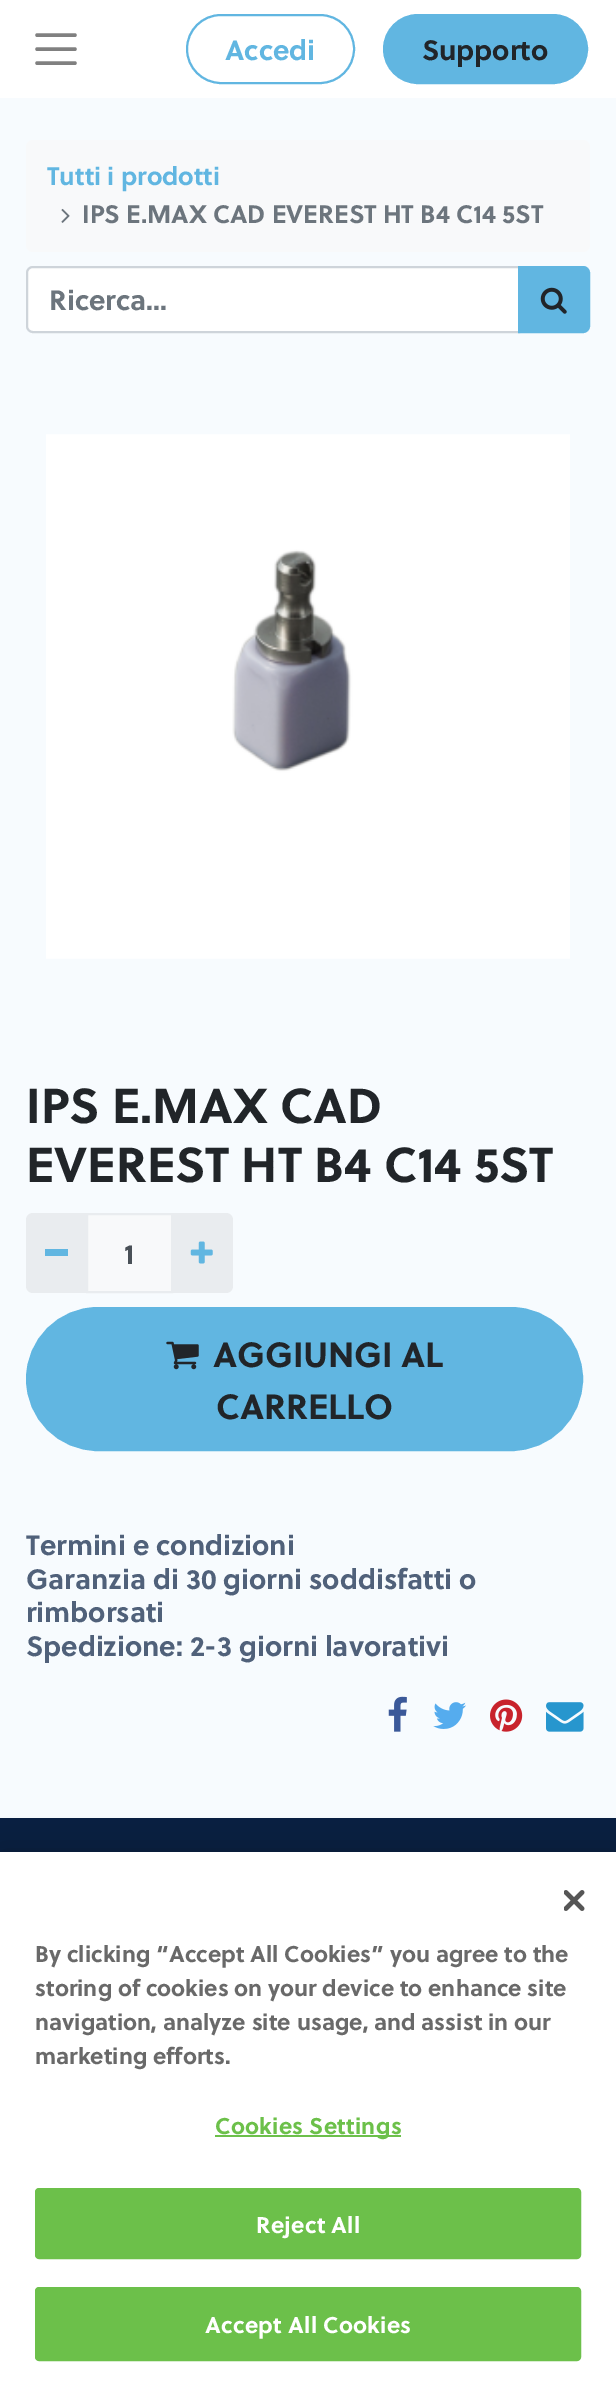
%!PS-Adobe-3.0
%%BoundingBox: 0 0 616 2388
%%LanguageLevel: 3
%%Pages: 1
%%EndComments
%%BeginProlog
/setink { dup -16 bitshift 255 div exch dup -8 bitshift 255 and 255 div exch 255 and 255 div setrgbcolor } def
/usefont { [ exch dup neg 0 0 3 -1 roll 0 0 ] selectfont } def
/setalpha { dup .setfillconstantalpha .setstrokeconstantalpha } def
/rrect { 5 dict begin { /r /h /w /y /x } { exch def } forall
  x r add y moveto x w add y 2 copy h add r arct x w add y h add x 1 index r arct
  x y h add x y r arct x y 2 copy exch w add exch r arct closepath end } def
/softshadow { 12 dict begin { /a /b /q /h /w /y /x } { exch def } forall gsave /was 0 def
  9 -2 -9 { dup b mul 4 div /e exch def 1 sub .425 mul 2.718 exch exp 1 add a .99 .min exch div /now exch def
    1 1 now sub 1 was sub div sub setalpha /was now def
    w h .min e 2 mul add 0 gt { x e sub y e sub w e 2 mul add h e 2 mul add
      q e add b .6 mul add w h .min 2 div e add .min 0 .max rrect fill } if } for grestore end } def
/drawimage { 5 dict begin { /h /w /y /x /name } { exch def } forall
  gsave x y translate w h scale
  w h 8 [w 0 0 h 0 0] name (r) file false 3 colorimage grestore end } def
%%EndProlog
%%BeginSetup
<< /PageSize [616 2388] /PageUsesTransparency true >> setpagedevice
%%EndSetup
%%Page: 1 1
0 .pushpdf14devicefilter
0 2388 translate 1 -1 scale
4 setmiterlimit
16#F7FBFE setink
0 0 616 2388 rectfill
16#FFFFFF setink
0 0 616 98 rectfill
16#808080 setink
3.5 setlinewidth
1 setlinecap
37 35 moveto 75 35 lineto 37 49 moveto 75 49 lineto 37 63 moveto 75 63 lineto stroke
16#61B6E1 setink
2 setlinewidth
0 setlinecap
187 15 167 68 34 rrect stroke
/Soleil-Bold 28 usefont
225 60 moveto (Accedi) show
384 15 203 68 34 rrect gsave fill grestore
stroke
16#212529 setink
422 60 moveto (Supporto) show
16#F8F9FA setink
26 140 564 112 7 rrect fill
/Soleil-Bold 25.25 usefont
16#61B6E1 setink
47 185 moveto (Tutti i prodotti) show
(img1.raw) 61 208 9 15 drawimage
16#6C757D setink
82 223 moveto (IPS E.MAX CAD EVEREST HT B4 C14 5ST) show
16#FFFFFF setink
33 267 moveto 519 267 lineto 519 332 lineto 33 332 lineto 29.5 332 27 329.5 27 326 curveto 27 273 lineto 27 269.5 29.5 267 33 267 curveto closepath gsave fill grestore
16#CED4DA setink
stroke
/Soleil-Bold 28 usefont
16#6C757D setink
49 310 moveto (Ricerca...) show
16#61B6E1 setink
519 267 moveto 583 267 lineto 586.5 267 589 269.5 589 273 curveto 589 326 lineto 589 329.5 586.5 332 583 332 curveto 519 332 lineto closepath gsave fill grestore
stroke
(img2.raw) 540 287 27 27 drawimage
(img3.raw) 46 434 524 525 drawimage
/Soleil-Bold 49 usefont
16#212529 setink
26 1123 moveto (IPS E.MAX CAD) show
26 1182 moveto (EVEREST HT B4 C14 5ST) show
16#F8F9FA setink
87 1214 moveto 172 1214 lineto 172 1292 lineto 87 1292 lineto closepath gsave fill grestore
16#E9ECEF setink
stroke
33 1213 moveto 88 1213 lineto 88 1293 lineto 33 1293 lineto 29 1293 26 1290 26 1286 curveto 26 1220 lineto 26 1216 29 1213 33 1213 curveto closepath fill
16#61B6E1 setink
45 1249 23 7 rectfill
/Soleil-Bold 28 usefont
16#495057 setink
124 1264 moveto (1) show
16#E9ECEF setink
172 1213 moveto 226 1213 lineto 230 1213 233 1216 233 1220 curveto 233 1286 lineto 233 1290 230 1293 226 1293 curveto 172 1293 lineto closepath fill
(img4.raw) 190 1241 23 23 drawimage
16#61B6E1 setink
27 1308 555 142 71 rrect gsave fill grestore
stroke
(img5.raw) 166 1341 33 29 drawimage
/Soleil-Bold 35 usefont
16#212529 setink
213 1367 moveto (AGGIUNGI AL) show
216 1419 moveto (CARRELLO) show
/Soleil-Bold 28 usefont
16#50617A setink
[
    [(Termini e condizioni) 26 1555]
    [(Garanzia di 30 giorni soddisfatti o) 26 1589]
    [(rimborsati) 26 1622]
    [(Spedizione: 2-3 giorni lavorativi) 26 1656]
] { aload pop moveto show } forall
(img6.raw) 388 1696 19 36 drawimage
(img7.raw) 433 1702 33 27 drawimage
(img8.raw) 490 1699 33 33 drawimage
(img9.raw) 546 1702 38 30 drawimage
16#091F42 setink
0 1818 616 34 rectfill
16#000000 setink
0 1852 616 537 0 16 0.2 softshadow
16#FFFFFF setink
0 1852 616 536 rectfill
(img10.raw) 564 1890 21 21 drawimage
/Soleil-Bold 22.75 usefont
16#696969 setink
[
    [(By clicking “Accept All Cookies” you agree to the) 35 1962]
    [(storing of cookies on your device to enhance site) 35 1996]
    [(navigation, analyze site usage, and assist in our) 35 2030]
    [(marketing efforts.) 35 2064]
] { aload pop moveto show } forall
16#6CC04A setink
215 2135 186 2 rectfill
215 2134 moveto 0.25 0 (Cookies Settings) ashow
36 2189 544 69 3 rrect gsave fill grestore
stroke
16#FFFFFF setink
256 2233 moveto 0.25 0 (Reject All) ashow
16#6CC04A setink
36 2288 544 72 3 rrect gsave fill grestore
stroke
16#FFFFFF setink
205 2333 moveto 0.25 0 (Accept All Cookies) ashow
.poppdf14devicefilter showpage
%%EOF
